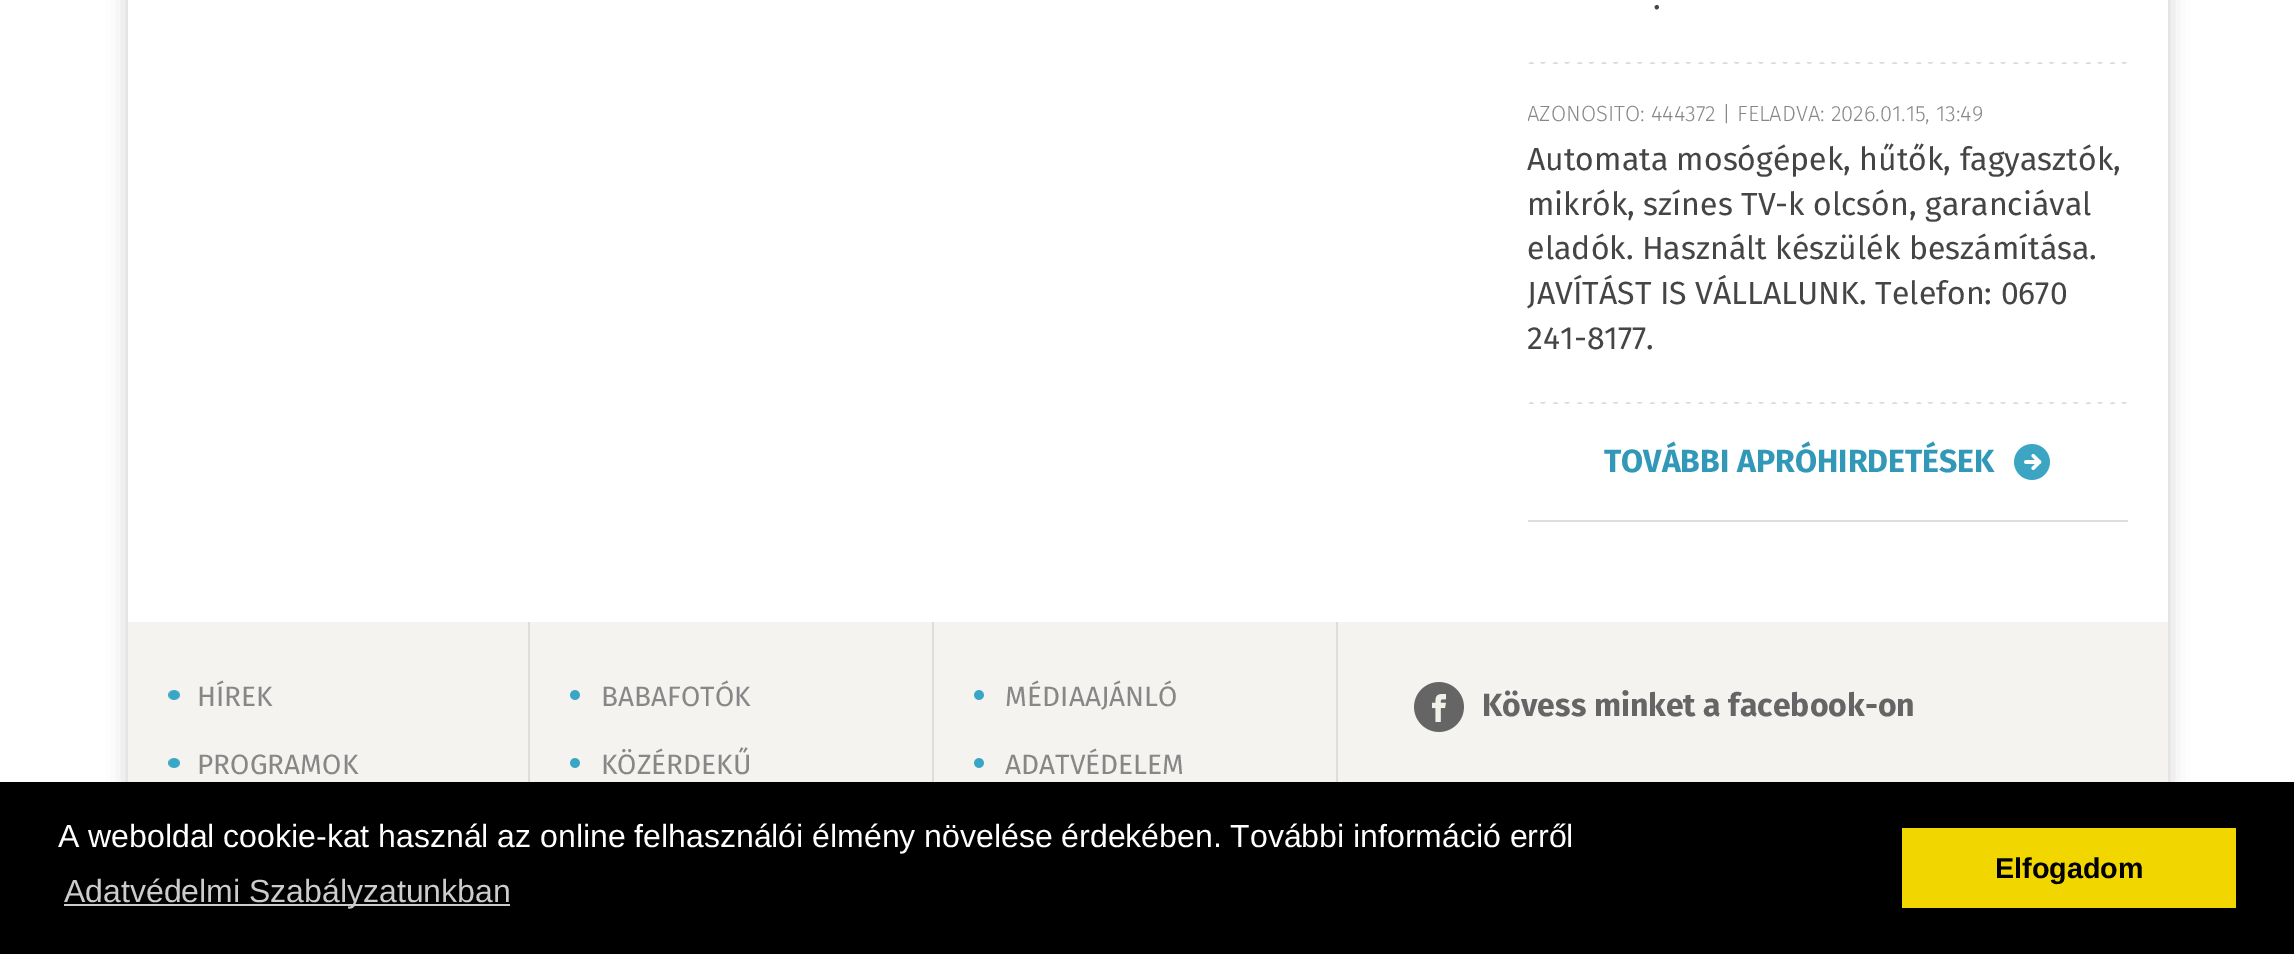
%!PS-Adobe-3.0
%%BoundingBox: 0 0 2294 954
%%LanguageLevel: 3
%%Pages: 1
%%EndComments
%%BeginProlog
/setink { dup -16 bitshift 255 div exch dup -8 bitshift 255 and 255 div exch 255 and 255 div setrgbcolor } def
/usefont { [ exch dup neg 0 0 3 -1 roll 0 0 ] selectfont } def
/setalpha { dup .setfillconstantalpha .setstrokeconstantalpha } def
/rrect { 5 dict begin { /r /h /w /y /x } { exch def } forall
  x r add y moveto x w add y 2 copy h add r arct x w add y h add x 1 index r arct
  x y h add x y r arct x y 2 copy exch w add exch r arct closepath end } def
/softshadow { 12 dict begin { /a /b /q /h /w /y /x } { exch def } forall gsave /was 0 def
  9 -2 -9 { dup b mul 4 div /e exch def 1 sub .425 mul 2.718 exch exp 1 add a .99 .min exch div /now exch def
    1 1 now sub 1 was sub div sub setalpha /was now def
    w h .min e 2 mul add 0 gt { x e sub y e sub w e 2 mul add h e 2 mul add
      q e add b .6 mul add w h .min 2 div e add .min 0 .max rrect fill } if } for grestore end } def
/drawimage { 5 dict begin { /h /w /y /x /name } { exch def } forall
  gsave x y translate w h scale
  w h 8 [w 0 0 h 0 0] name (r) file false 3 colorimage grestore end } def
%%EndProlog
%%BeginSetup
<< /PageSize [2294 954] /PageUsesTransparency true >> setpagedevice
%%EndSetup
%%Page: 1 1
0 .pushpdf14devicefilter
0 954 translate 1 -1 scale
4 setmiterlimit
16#FFFFFF setink
0 0 2294 954 rectfill
gsave
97 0 moveto 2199 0 lineto 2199 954 lineto 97 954 lineto closepath 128 -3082 moveto 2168 -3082 lineto 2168 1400 lineto 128 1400 lineto closepath eoclip newpath
16#000000 setink
128 -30 2040 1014 0 10 0.2 softshadow
grestore
(img1.raw) 1528 62 599 2 drawimage
/FiraSans-Regular 32 usefont
16#454545 setink
1653 9 moveto (.) show
(img1.raw) 1528 402 599 2 drawimage
gsave
1528 104 600 300 rectclip
/FiraSans-Light 22 usefont
16#878787 setink
1527 121 moveto (AZONOSÍTÓ: 444372 | FELADVA: 2026.01.15, 13:49) show
grestore
[
    [(Automata mosógépek, hűtők, fagyasztók,) 1527 170]
    [(mikrók, színes TV-k olcsón, garanciával) 1527 215]
    [(eladók. Használt készülék beszámítása.) 1527 259]
    [(JAVÍTÁST IS VÁLLALUNK. Telefon: 0670) 1527 304]
    [(241-8177.) 1527 349]
] { aload pop moveto show } forall
16#DDDDDD setink
1528 520 600 2 rectfill
(img2.raw) 2014 444 36 36 drawimage
/FiraSans-Bold 32 usefont
16#3198B8 setink
1604 472 moveto (TOVÁBBI APRÓHIRDETÉSEK) show
16#F5F3F0 setink
128 622 2040 160 rectfill
16#DDDDDD setink
528 622 2 160 rectfill
(img3.raw) 168 690 12 10 drawimage
/FiraSans-Regular 28 usefont
16#878787 setink
197 706 moveto (HÍREK) show
(img3.raw) 168 758 12 10 drawimage
197 774 moveto (PROGRAMOK) show
16#DDDDDD setink
932 622 2 160 rectfill
(img4.raw) 570 690 10 10 drawimage
16#878787 setink
601 706 moveto (BABAFOTÓK) show
(img4.raw) 570 758 10 10 drawimage
601 774 moveto (KÖZÉRDEKŰ) show
16#DDDDDD setink
1336 622 2 160 rectfill
(img4.raw) 974 690 10 10 drawimage
16#878787 setink
1005 706 moveto (MÉDIAAJÁNLÓ) show
(img4.raw) 974 758 10 10 drawimage
1005 774 moveto (ADATVÉDELEM) show
(img5.raw) 1414 682 50 50 drawimage
/FiraSans-Bold 32 usefont
16#656565 setink
1482 716 moveto (Kövess minket a facebook-on) show
16#000000 setink
0 782 2294 172 rectfill
/LiberationSans-Regular 32 usefont
16#FFFFFF setink
58 847 moveto (A weboldal cookie-kat használ az online felhasználói élmény növelése érdekében. További információ erről) show
16#CCCCCC setink
64 904 446 2 rectfill
64 902 moveto (Adatvédelmi Szabályzatunkban) show
16#F1D600 setink
1902 828 334 80 rectfill
/LiberationSans-Bold 28.75 usefont
16#000000 setink
1995 878 moveto (Elfogadom) show
.poppdf14devicefilter showpage
%%EOF
